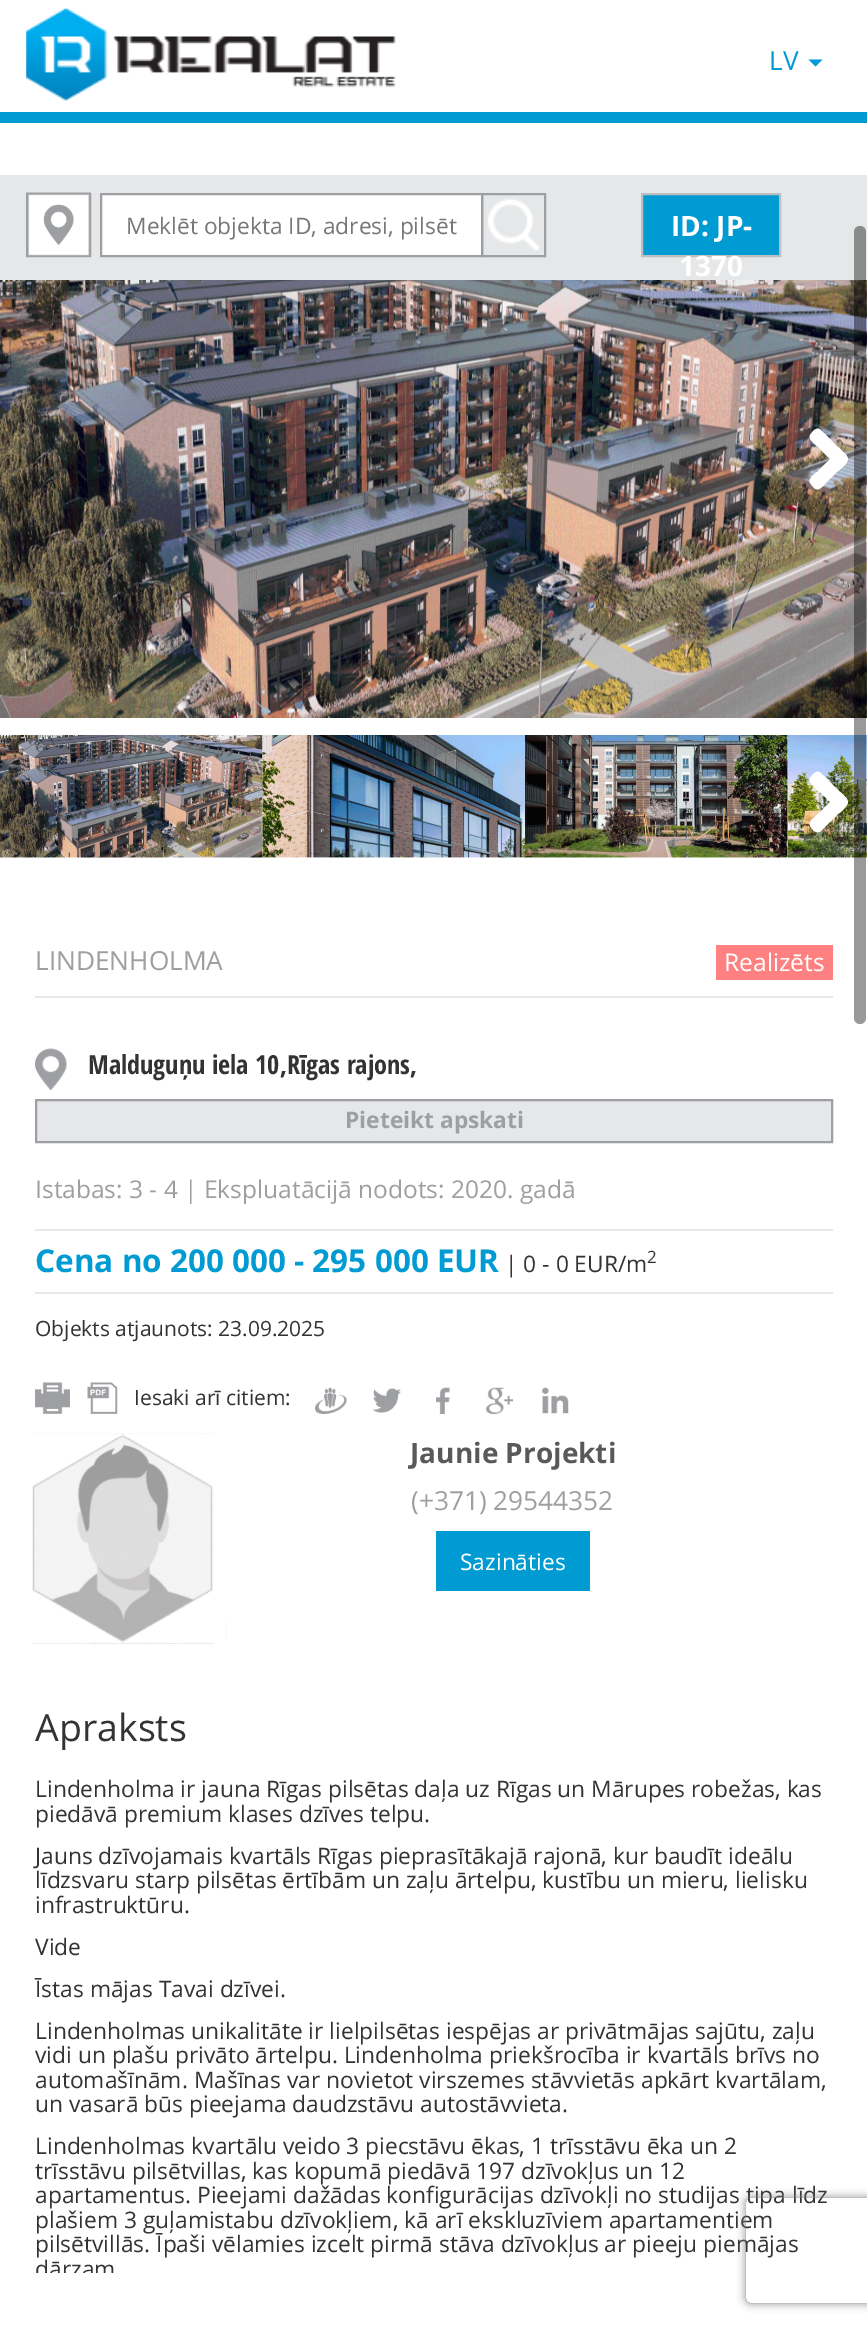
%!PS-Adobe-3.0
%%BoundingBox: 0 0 867 2326
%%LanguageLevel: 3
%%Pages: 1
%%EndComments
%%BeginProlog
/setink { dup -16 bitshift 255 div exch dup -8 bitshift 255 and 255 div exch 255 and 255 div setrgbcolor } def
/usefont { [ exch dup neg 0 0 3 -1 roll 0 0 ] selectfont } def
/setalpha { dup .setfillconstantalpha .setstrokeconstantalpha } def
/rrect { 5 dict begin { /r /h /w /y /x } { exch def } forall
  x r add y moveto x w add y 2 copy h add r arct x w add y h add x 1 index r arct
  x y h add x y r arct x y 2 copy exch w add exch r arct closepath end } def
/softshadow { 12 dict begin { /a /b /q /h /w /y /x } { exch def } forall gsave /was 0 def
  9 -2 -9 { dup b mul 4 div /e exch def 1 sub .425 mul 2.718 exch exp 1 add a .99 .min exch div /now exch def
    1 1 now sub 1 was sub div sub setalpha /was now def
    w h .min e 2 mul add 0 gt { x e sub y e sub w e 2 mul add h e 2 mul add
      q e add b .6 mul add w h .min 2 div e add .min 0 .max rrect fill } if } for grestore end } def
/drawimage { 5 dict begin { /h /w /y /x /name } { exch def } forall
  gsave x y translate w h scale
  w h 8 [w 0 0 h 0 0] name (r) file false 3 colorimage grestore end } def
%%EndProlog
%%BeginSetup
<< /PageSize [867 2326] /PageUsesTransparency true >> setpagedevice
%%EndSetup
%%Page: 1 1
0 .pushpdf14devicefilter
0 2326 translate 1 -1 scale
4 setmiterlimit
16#FFFFFF setink
0 0 867 2326 rectfill
16#009BD3 setink
0 112 867 11 rectfill
(img1.raw) 26 8 370 94 drawimage
/OpenSans-Regular 26.25 usefont
769 70 moveto (LV) show
808.5 59.5 moveto 822.5 59.5 lineto 815.5 66.5 lineto closepath fill
16#E6E7E8 setink
0 175 867 105 rectfill
16#9D9FA2 setink
2 setlinewidth
27 194 63 62 rectstroke
(img2.raw) 26 192 65 66 drawimage
(img3.raw) 488 199 51 52 drawimage
482 194 63 62 rectstroke
16#FFFFFF setink
101 194 moveto 482 194 lineto 482 256 lineto 101 256 lineto closepath gsave fill grestore
16#9D9FA2 setink
stroke
/OpenSans-Regular 22.75 usefont
16#777777 setink
126 234 moveto (Meklēt objekta ID, adresi, pilsēt) show
16#009BD3 setink
642 194 moveto 780 194 lineto 780 256 lineto 642 256 lineto closepath gsave fill grestore
16#BCBEC0 setink
stroke
/OpenSans-Bold 28 usefont
16#FFFFFF setink
671 236 moveto (ID: JP-) show
679 276 moveto (1370) show
(img4.raw) 0 280 867 438 drawimage
(img8.raw) 788 735 79 123 drawimage
0.4 setalpha
16#000000 setink
854 226 12 798 6 rrect fill
1 setalpha
16#FFFFFF setink
848 459 moveto 848 463 841 469 838 471 curveto 825 484 lineto 821 488 818 492 813 487 curveto 810 483 lineto 808 478 815 474 817 472 curveto 830 459 lineto 817 446 lineto 815 444 808 440 810 435 curveto 813 431 lineto 819 426 820 430 825 434 curveto 838 447 lineto 840 449 848 455 848 459 curveto closepath fill
(img5.raw) 0 735 263 123 drawimage
(img6.raw) 262 735 263 123 drawimage
(img7.raw) 525 735 263 123 drawimage
848 802 moveto 848 806 841 812 838 814 curveto 825 827 lineto 821 831 818 835 813 830 curveto 810 826 lineto 808 821 815 817 817 815 curveto 830 802 lineto 817 789 lineto 815 787 808 783 810 778 curveto 813 774 lineto 819 769 820 773 825 777 curveto 838 790 lineto 840 792 848 798 848 802 curveto closepath fill
/OpenSans-Regular 26.25 usefont
16#9D9FA2 setink
35 970 moveto (LINDENHOLMA) show
16#FF8080 setink
716 945 117 35 rectfill
/OpenSans-Regular 24.5 usefont
16#FFFFFF setink
724 971 moveto (Realizēts) show
16#E8E8E8 setink
35 996 798 2 rectfill
(img9.raw) 35 1048 32 43 drawimage
/OpenSansCondensed-Bold 26.25 usefont
16#333333 setink
88 1074 moveto (Malduguņu iela 10,Rīgas rajons,) show
16#E6E7E8 setink
36 1100 moveto 832 1100 lineto 832 1142 lineto 36 1142 lineto closepath gsave fill grestore
16#9D9FA2 setink
stroke
/OpenSans-Bold 22.75 usefont
345 1128 moveto (Pieteikt apskati) show
/OpenSans-Regular 24.5 usefont
35 1198 moveto (Istabas: 3 - 4 | Ekspluatācijā nodots: 2020. gadā) show
16#E8E8E8 setink
35 1229 798 2 rectfill
35 1292 798 2 rectfill
/OpenSans-Bold 31.5 usefont
16#009BD3 setink
35 1272 moveto (Cena no 200 000 - 295 000 EUR) show
/OpenSans-Regular 22.75 usefont
16#333333 setink
505 1272 moveto (| 0 - 0 EUR/m) show
/OpenSans-Regular 17 usefont
647 1263 moveto (2) show
/OpenSans-Regular 21 usefont
35 1336 moveto (Objekts atjaunots: 23.09.2025) show
(img10.raw) 35 1382 35 32 drawimage
(img11.raw) 87 1382 31 32 drawimage
134 1405 moveto (Iesaki arī citiem:) show
(img12.raw) 315 1387 32 27 drawimage
(img13.raw) 372 1388 29 25 drawimage
(img14.raw) 436 1387 14 27 drawimage
(img15.raw) 486 1387 27 27 drawimage
(img16.raw) 542 1387 27 27 drawimage
(img17.raw) 31 1433 183 211 drawimage
(img18.raw) 31 1433 196 210 drawimage
/OpenSans-Bold 28 usefont
16#58595B setink
410 1463 moveto (Jaunie Projekti) show
/OpenSans-Regular 26.25 usefont
16#9D9FA2 setink
411 1510 moveto (\(+371\) 29544352) show
16#009BD3 setink
436 1531 154 60 rectfill
/OpenSans-Regular 22.75 usefont
16#FFFFFF setink
460 1570 moveto (Sazināties) show
/OpenSans-Regular 37.5 usefont
16#333333 setink
35 1741 moveto (Apraksts) show
/OpenSans-Regular 22.75 usefont
[
    [(Lindenholma ir jauna Rīgas pilsētas daļa uz Rīgas un Mārupes robežas, kas) 35 1797]
    [(piedāvā premium klases dzīves telpu.) 35 1822]
    [(Jauns dzīvojamais kvartāls Rīgas pieprasītākajā rajonā, kur baudīt ideālu) 35 1864]
    [(līdzsvaru starp pilsētas ērtībām un zaļu ārtelpu, kustību un mieru, lielisku) 35 1888]
    [(infrastruktūru.) 35 1913]
    [(Vide) 35 1955]
    [(Īstas mājas Tavai dzīvei.) 35 1997]
    [(Lindenholmas unikalitāte ir lielpilsētas iespējas ar privātmājas sajūtu, zaļu) 35 2039]
    [(vidi un plašu privāto ārtelpu. Lindenholma priekšrocība ir kvartāls brīvs no) 35 2063]
    [(automašīnām. Mašīnas var novietot virszemes stāvvietās apkārt kvartālam,) 35 2088]
    [(un vasarā būs pieejama daudzstāvu autostāvvieta.) 35 2112]
    [(Lindenholmas kvartālu veido 3 piecstāvu ēkas, 1 trīsstāvu ēka un 2) 35 2154]
    [(trīsstāvu pilsētvillas, kas kopumā piedāvā 197 dzīvokļus un 12) 35 2179]
    [(apartamentus. Pieejami dažādas konfigurācijas dzīvokļi no studijas tipa līdz) 35 2203]
    [(plašiem 3 guļamistabu dzīvokļiem, kā arī ekskluzīviem apartamentiem) 35 2228]
    [(pilsētvillās. Īpaši vēlamies izcelt pirmā stāva dzīvokļus ar pieeju piemājas) 35 2252]
] { aload pop moveto show } forall
gsave
0 228 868 2045 rectclip
35 2277 moveto (dārzam) show
grestore
gsave
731 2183 moveto 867 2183 lineto 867 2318 lineto 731 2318 lineto closepath 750 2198 moveto 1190 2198 lineto 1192 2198 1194 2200 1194 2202 curveto 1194 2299 lineto 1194 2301 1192 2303 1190 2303 curveto 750 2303 lineto 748 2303 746 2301 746 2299 curveto 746 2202 lineto 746 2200 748 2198 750 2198 curveto closepath eoclip newpath
16#808080 setink
746 2198 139 105 4 4.5 1 softshadow
grestore
.poppdf14devicefilter showpage
%%EOF
